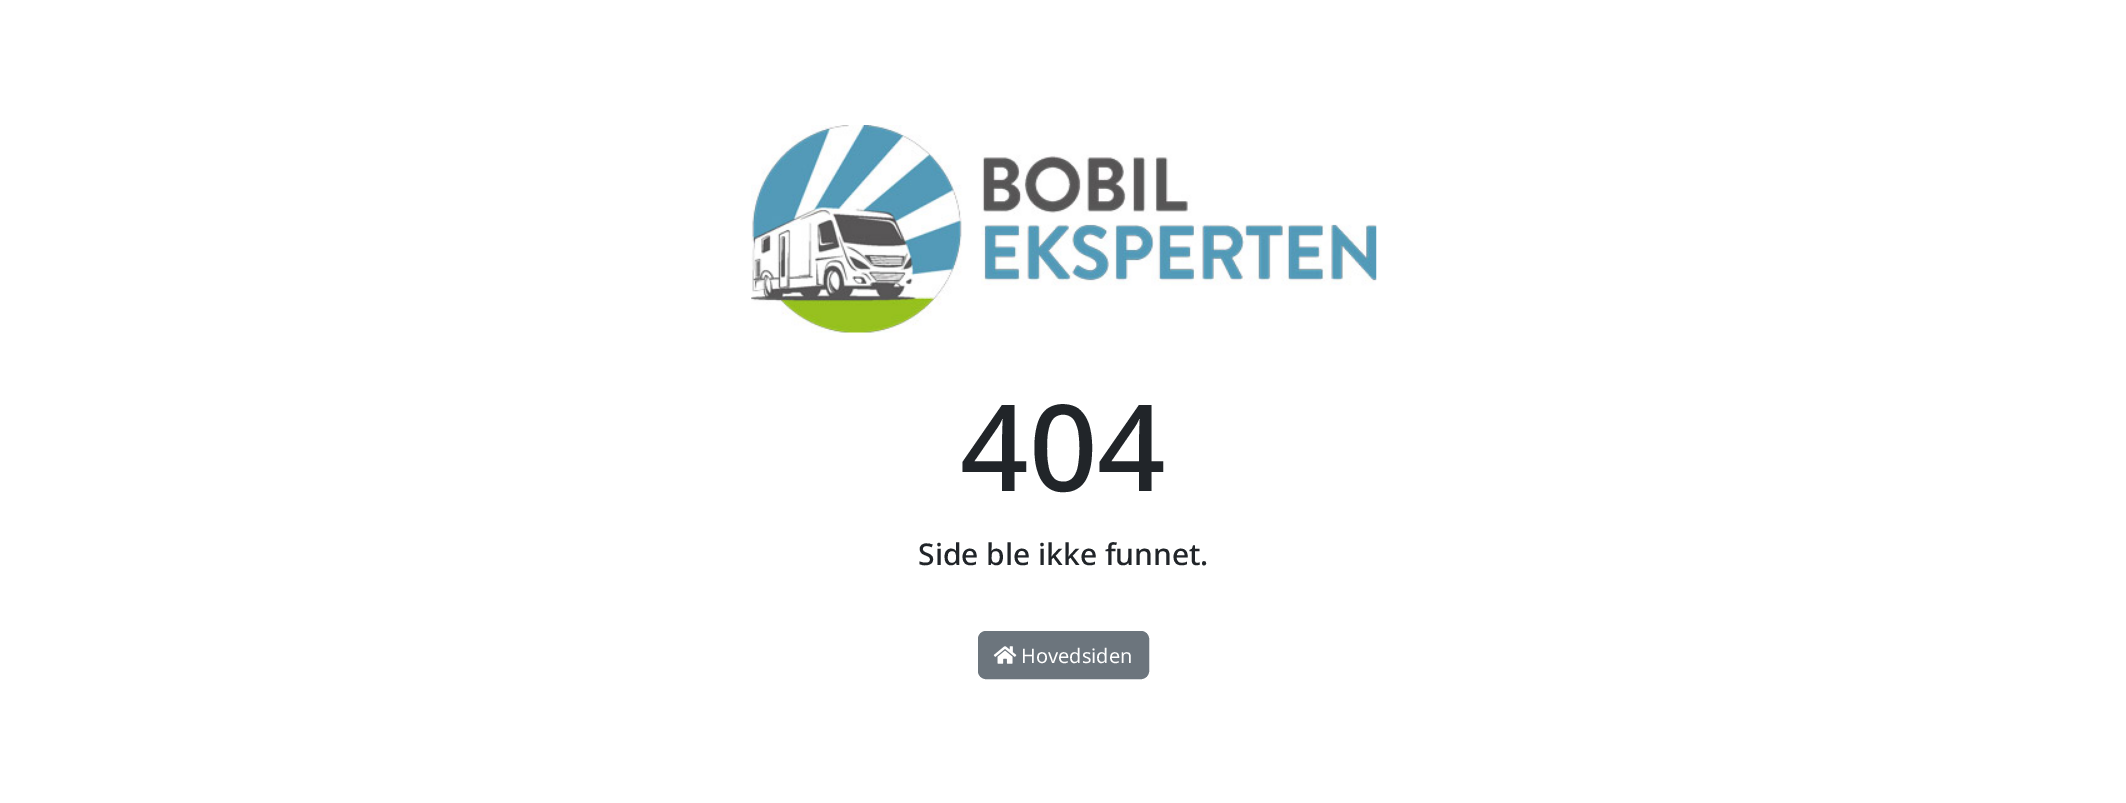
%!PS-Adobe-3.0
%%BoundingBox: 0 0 2126 803
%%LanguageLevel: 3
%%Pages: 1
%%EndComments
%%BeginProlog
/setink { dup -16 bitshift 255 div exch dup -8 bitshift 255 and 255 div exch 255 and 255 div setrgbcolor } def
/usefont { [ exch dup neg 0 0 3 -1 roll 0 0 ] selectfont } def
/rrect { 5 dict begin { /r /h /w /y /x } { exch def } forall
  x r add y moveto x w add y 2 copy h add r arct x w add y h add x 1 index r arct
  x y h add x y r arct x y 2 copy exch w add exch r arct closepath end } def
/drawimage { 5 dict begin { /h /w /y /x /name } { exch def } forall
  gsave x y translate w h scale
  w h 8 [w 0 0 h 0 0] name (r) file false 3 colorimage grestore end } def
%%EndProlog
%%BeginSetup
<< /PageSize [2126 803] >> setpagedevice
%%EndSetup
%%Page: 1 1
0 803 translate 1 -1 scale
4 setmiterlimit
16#FFFFFF setink
0 0 2126 803 rectfill
(img1.raw) 751 125 626 208 drawimage
/NotoSans-Medium 120 usefont
16#212529 setink
960 491 moveto (404) show
/NotoSans-Medium 30 usefont
918 565 moveto (Side ble ikke funnet.) show
16#6C757D setink
978.5 631.5 170 47 7.5 rrect gsave fill grestore
stroke
(img2.raw) 993 646 24 18 drawimage
/NotoSans-Regular 20 usefont
16#FFFFFF setink
1021 663 moveto (Hovedsiden) show
showpage
%%EOF
